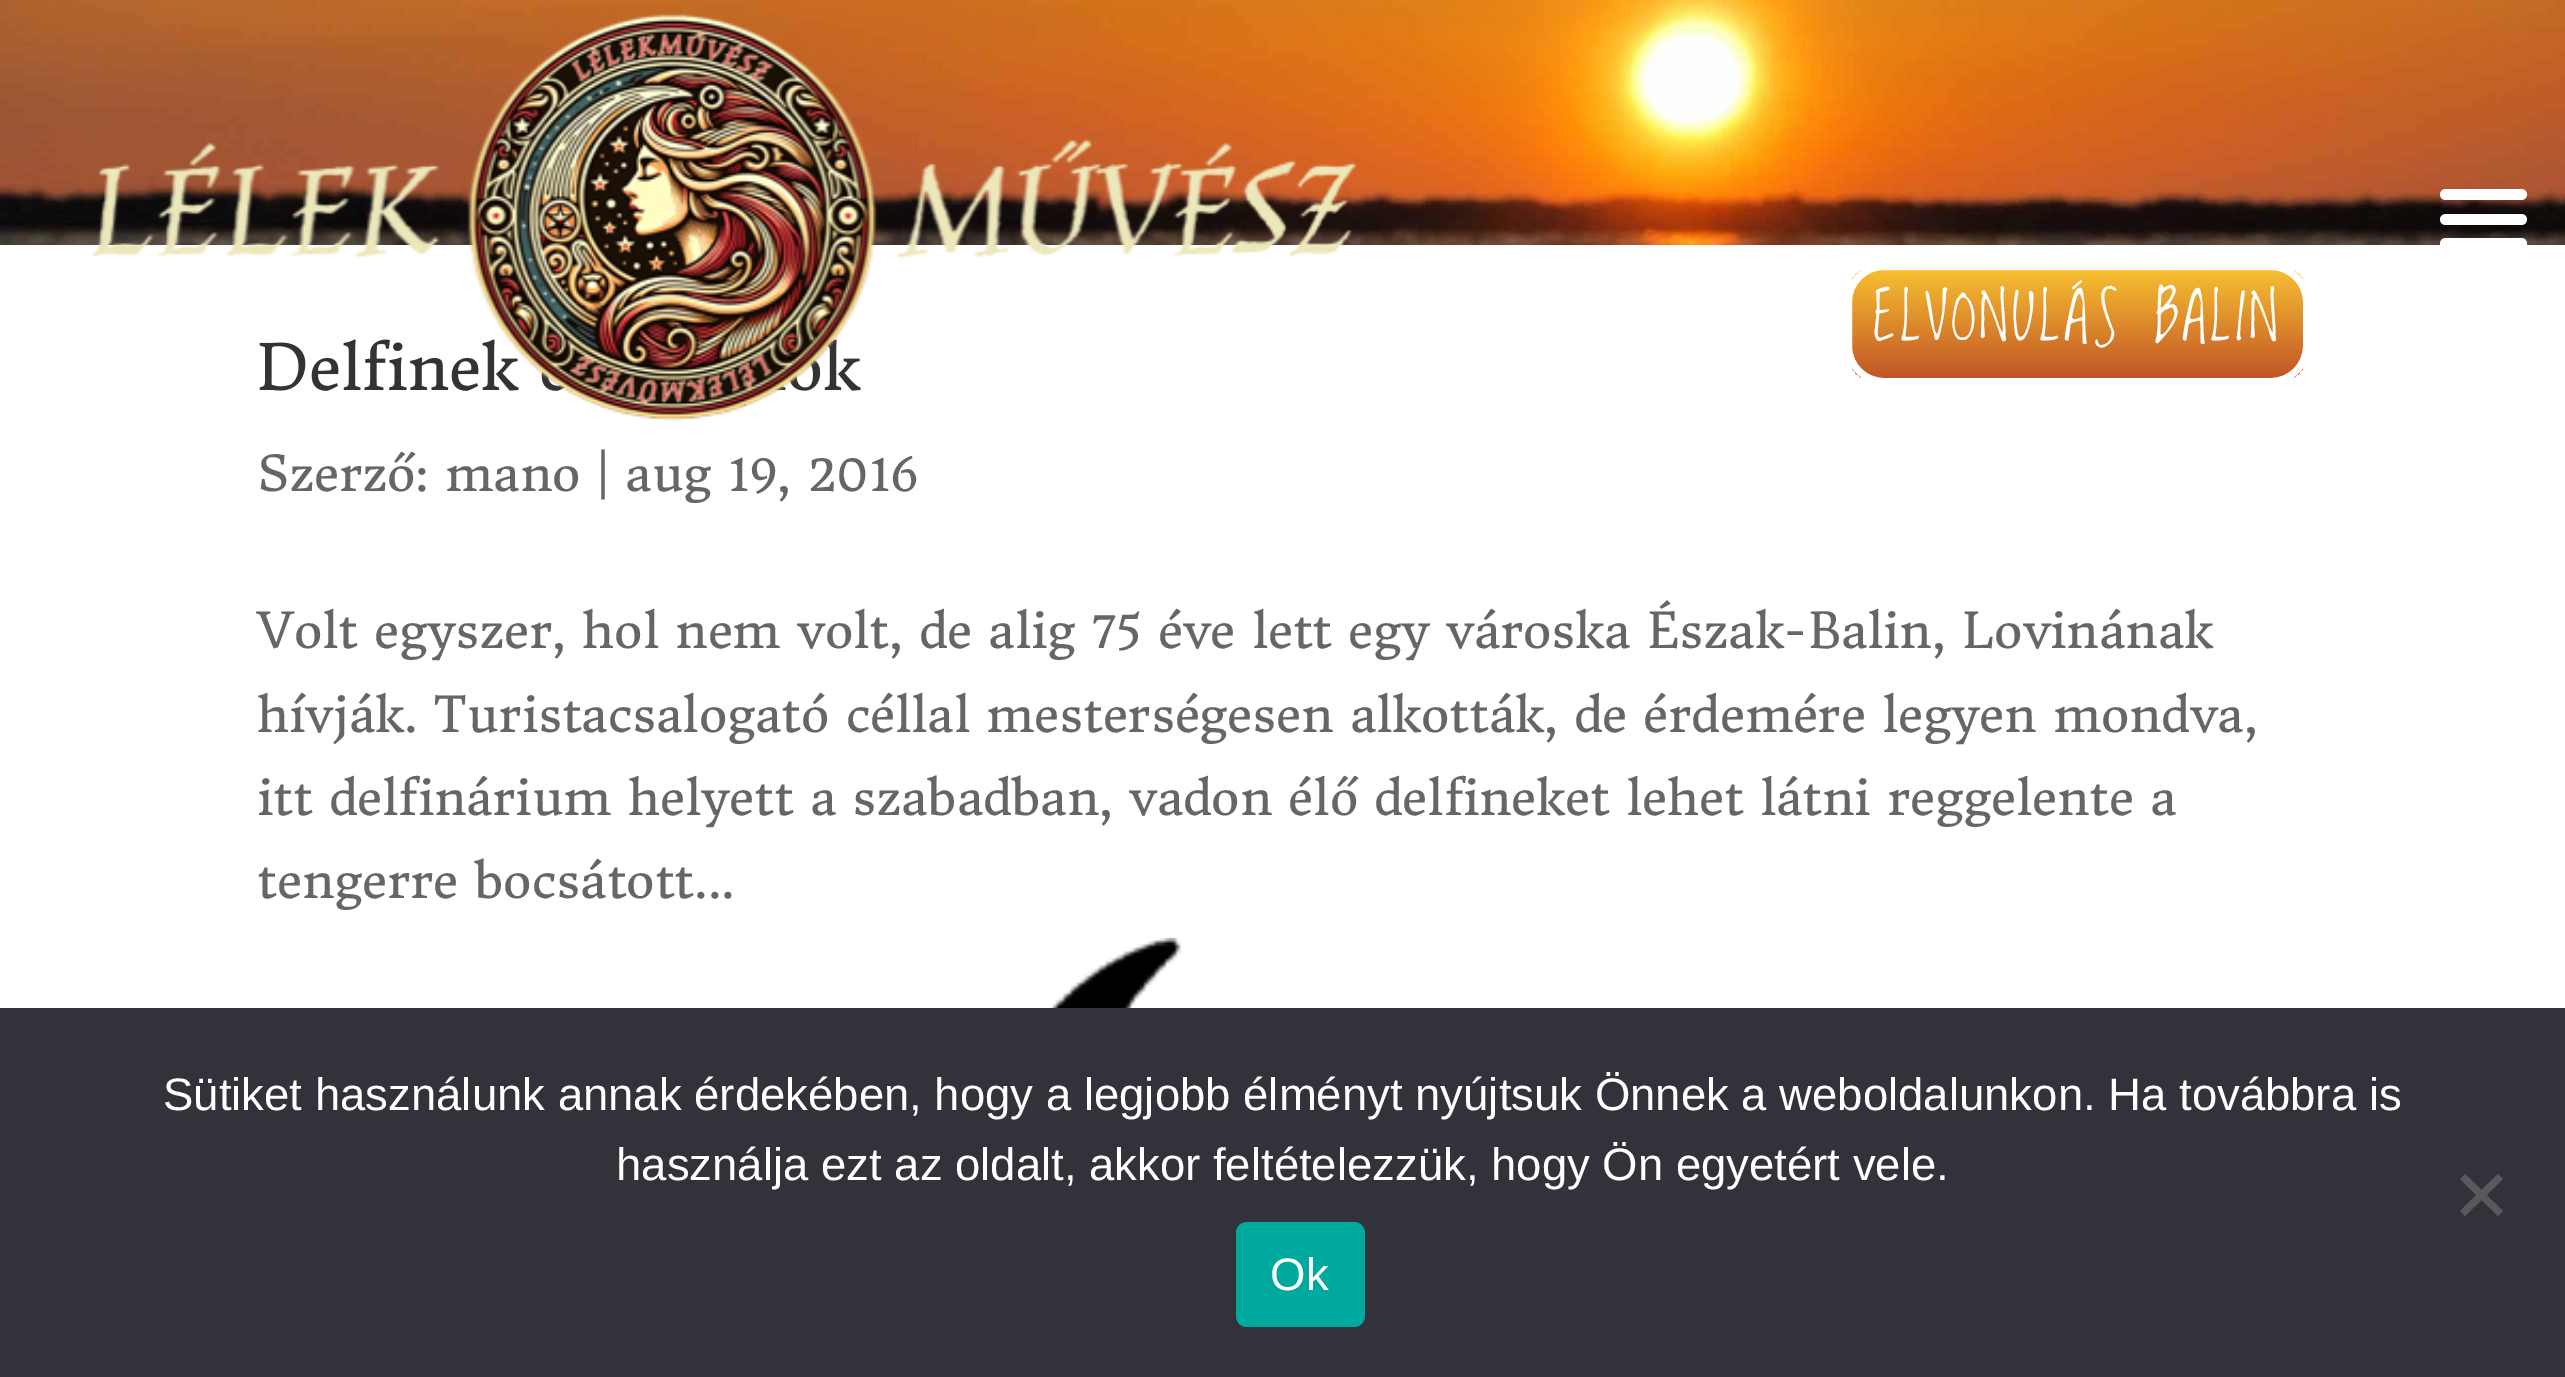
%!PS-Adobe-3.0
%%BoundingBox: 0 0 2565 1377
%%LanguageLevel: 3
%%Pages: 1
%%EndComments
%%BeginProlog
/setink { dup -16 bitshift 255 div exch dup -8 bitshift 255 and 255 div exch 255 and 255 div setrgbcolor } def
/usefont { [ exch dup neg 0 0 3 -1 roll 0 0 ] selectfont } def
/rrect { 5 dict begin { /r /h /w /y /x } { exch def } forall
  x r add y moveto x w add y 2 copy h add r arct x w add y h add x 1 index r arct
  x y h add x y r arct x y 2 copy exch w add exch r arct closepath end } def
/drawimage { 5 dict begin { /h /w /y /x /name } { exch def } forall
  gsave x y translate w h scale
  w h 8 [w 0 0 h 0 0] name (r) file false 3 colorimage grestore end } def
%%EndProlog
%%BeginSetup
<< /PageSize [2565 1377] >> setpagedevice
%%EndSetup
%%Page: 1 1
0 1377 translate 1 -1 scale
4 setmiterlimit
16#FFFFFF setink
0 0 2565 1377 rectfill
(img1.raw) 0 0 2565 245 drawimage
/DonegalOne-Regular 63 usefont
16#333333 setink
257 390 moveto (Delfinek) show
823 390 moveto (k) show
(img2.raw) 92 14 1265 407 drawimage
16#FFFFFF setink
2440 238 87 11 5.5 rrect fill
2440 189 87 11 5.5 rrect fill
2440 214 87 11 5.5 rrect fill
gsave
1845 263 465 122 39 rrect clip newpath
gsave 1852 270 moveto 2303 270 lineto 2303 378 lineto 1852 378 lineto closepath clip newpath
<< /ShadingType 2 /ColorSpace /DeviceRGB /Coords [2077 270 2077 378] /Extend [true true] /Function << /FunctionType 2 /Domain [0 1] /C0 [0.969 0.749 0.192] /C1 [0.757 0.333 0.149] /N 1 >> >> shfill grestore
grestore
7 setlinewidth
1848.5 266.5 458 115 35.5 rrect stroke
/LovedbytheKing-Regular 63 usefont
1873 340 moveto 3.5 0 (ELVONULÁS BALIN) ashow
/DonegalOne-Regular 49 usefont
16#666666 setink
[
    [(Szerző: mano | aug 19, 2016) 257 491]
    [(Volt egyszer, hol nem volt, de alig 75 éve lett egy városka Észak-Balin, Lovinának) 257 648]
    [(hívják. Turistacsalogató céllal mesterségesen alkották, de érdemére legyen mondva,) 257 732]
    [(itt delfinárium helyett a szabadban, vadon élő delfineket lehet látni reggelente a) 257 815]
    [(tengerre bocsátott...) 257 898]
] { aload pop moveto show } forall
(img3.raw) 1049 938 132 70 drawimage
16#32323A setink
0 1008 2565 369 rectfill
/LiberationSans-Regular 45.5 usefont
16#FFFFFF setink
163 1110 moveto (Sütiket használunk annak érdekében, hogy a legjobb élményt nyújtsuk Önnek a weboldalunkon. Ha továbbra is) show
616 1180 moveto (használja ezt az oldalt, akkor feltételezzük, hogy Ön egyetért vele.) show
16#59595D setink
2498 1174 moveto 2503 1179 lineto 2465 1216 lineto 2460 1211 lineto closepath fill
2460 1179 moveto 2465 1174 lineto 2503 1211 lineto 2498 1216 lineto closepath fill
16#00A99D setink
1236 1222 129 105 11 rrect fill
16#FFFFFF setink
1270 1290 moveto 1 0 (Ok) ashow
showpage
%%EOF
